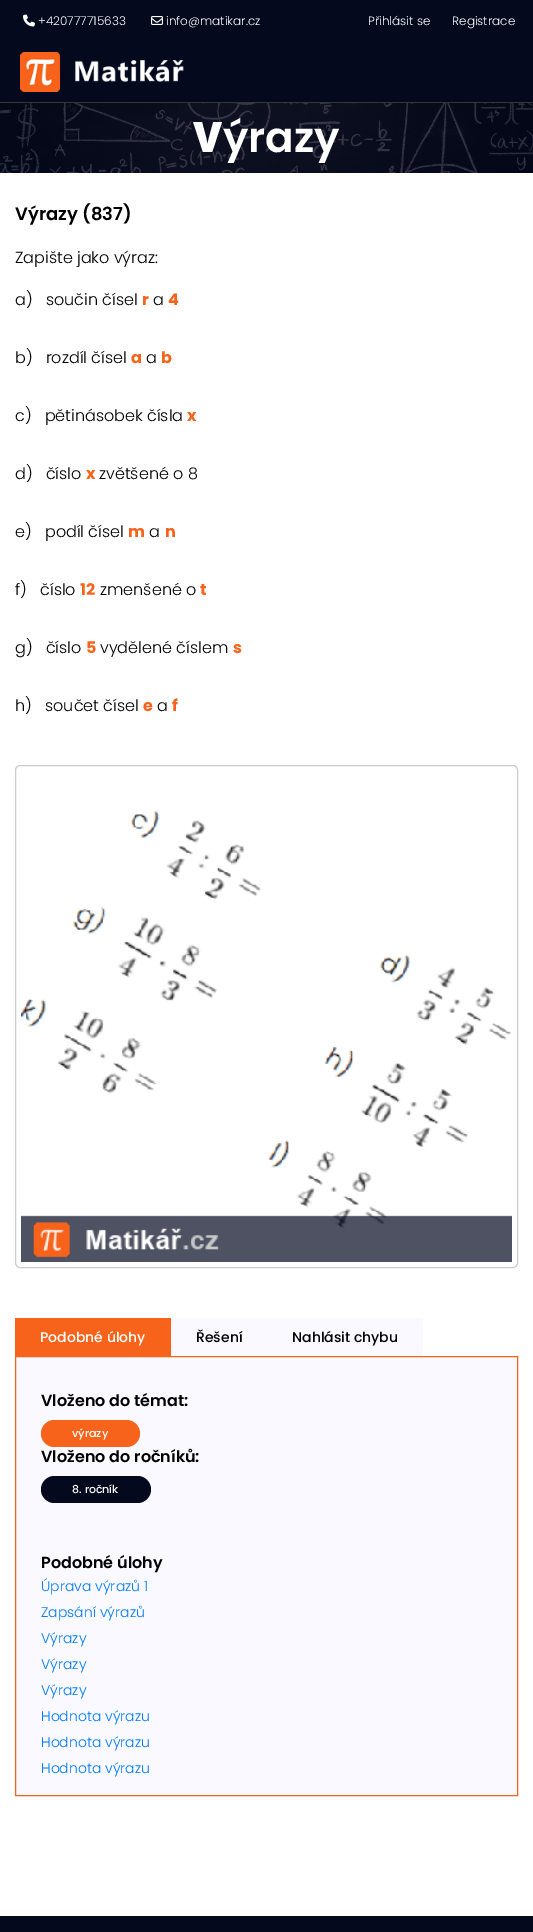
%!PS-Adobe-3.0
%%BoundingBox: 0 0 533 1932
%%LanguageLevel: 3
%%Pages: 1
%%EndComments
%%BeginProlog
/setink { dup -16 bitshift 255 div exch dup -8 bitshift 255 and 255 div exch 255 and 255 div setrgbcolor } def
/usefont { [ exch dup neg 0 0 3 -1 roll 0 0 ] selectfont } def
/rrect { 5 dict begin { /r /h /w /y /x } { exch def } forall
  x r add y moveto x w add y 2 copy h add r arct x w add y h add x 1 index r arct
  x y h add x y r arct x y 2 copy exch w add exch r arct closepath end } def
/drawimage { 5 dict begin { /h /w /y /x /name } { exch def } forall
  gsave x y translate w h scale
  w h 8 [w 0 0 h 0 0] name (r) file false 3 colorimage grestore end } def
%%EndProlog
%%BeginSetup
<< /PageSize [533 1932] >> setpagedevice
%%EndSetup
%%Page: 1 1
0 1932 translate 1 -1 scale
4 setmiterlimit
16#FFFFFF setink
0 0 533 1932 rectfill
16#04091E setink
0 0 533 102 rectfill
(img1.raw) 23 14 12 13 drawimage
/Poppins-Light 12 usefont
16#FFFFFF setink
38 25 moveto (+420777715633) show
(img2.raw) 151 16 12 9 drawimage
[
    [(info@matikar.cz) 166 25]
    [(Přihlásit se) 368 25]
    [(Registrace) 452 25]
] { aload pop moveto show } forall
16#39353E setink
0 102 533 1 rectfill
(img3.raw) 20 52 164 40 drawimage
(img4.raw) 0 103 533 70 drawimage
/NotoSans-Black 42 usefont
16#FFFFFF setink
193 152 moveto (V) show
/Poppins-SemiBold 42 usefont
223 152 moveto (ýrazy) show
/Poppins-SemiBold 18 usefont
16#000000 setink
15 220 moveto (Výrazy \(837\)) show
/Poppins-Light 16 usefont
15 263 moveto (Zapište jako výraz:) show
15 305 moveto (a\)   součin čísel) show
/Poppins-Bold 16 usefont
16#F7631B setink
142 305 moveto (r) show
/Poppins-Light 16 usefont
16#000000 setink
153 305 moveto (a) show
/Poppins-Bold 16 usefont
16#F7631B setink
168 305 moveto (4) show
/Poppins-Light 16 usefont
16#000000 setink
15 363 moveto (b\)   rozdíl čísel) show
/Poppins-Bold 16 usefont
16#F7631B setink
131 363 moveto (a) show
/Poppins-Light 16 usefont
16#000000 setink
146 363 moveto (a) show
/Poppins-Bold 16 usefont
16#F7631B setink
161 363 moveto (b) show
/Poppins-Light 16 usefont
16#000000 setink
15 421 moveto (c\)   pětinásobek čísla) show
/Poppins-Bold 16 usefont
16#F7631B setink
187 421 moveto (x) show
/Poppins-Light 16 usefont
16#000000 setink
15 479 moveto (d\)   číslo) show
/Poppins-Bold 16 usefont
16#F7631B setink
86 479 moveto (x) show
/Poppins-Light 16 usefont
16#000000 setink
99 479 moveto (zvětšené o 8) show
15 537 moveto (e\)   podíl čísel) show
/Poppins-Bold 16 usefont
16#F7631B setink
128 537 moveto (m) show
/Poppins-Light 16 usefont
16#000000 setink
149 537 moveto (a) show
/Poppins-Bold 16 usefont
16#F7631B setink
165 537 moveto (n) show
/Poppins-Light 16 usefont
16#000000 setink
15 595 moveto (f\)   číslo) show
/Poppins-Bold 16 usefont
16#F7631B setink
80 595 moveto (12) show
/Poppins-Light 16 usefont
16#000000 setink
100 595 moveto (zmenšené o) show
/Poppins-Bold 16 usefont
16#F7631B setink
200 595 moveto (t) show
/Poppins-Light 16 usefont
16#000000 setink
15 653 moveto (g\)   číslo) show
/Poppins-Bold 16 usefont
16#F7631B setink
86 653 moveto (5) show
/Poppins-Light 16 usefont
16#000000 setink
100 653 moveto (vydělené číslem) show
/Poppins-Bold 16 usefont
16#F7631B setink
233 653 moveto (s) show
/Poppins-Light 16 usefont
16#000000 setink
15 711 moveto (h\)   součet čísel) show
/Poppins-Bold 16 usefont
16#F7631B setink
143 711 moveto (e) show
/Poppins-Light 16 usefont
16#000000 setink
157 711 moveto (a) show
/Poppins-Bold 16 usefont
16#F7631B setink
172 711 moveto (f) show
16#CCCCCC setink
15.5 765.5 502 502 4.5 rrect stroke
(img5.raw) 21 810 491 452 drawimage
16#F7631B setink
15 1318 156 38 rectfill
/Poppins-Medium 14 usefont
16#FFFFFF setink
40 1342 moveto (Podobné úlohy) show
16#F9F9FF setink
171 1318 252 38 rectfill
16#000000 setink
196 1342 moveto (Řešení) show
292 1342 moveto (Nahlásit chybu) show
16#F9F9FF setink
15.5 1356.5 moveto 517.5 1356.5 lineto 517.5 1795.5 lineto 15.5 1795.5 lineto closepath gsave fill grestore
16#F7631B setink
stroke
/Poppins-SemiBold 16 usefont
16#000000 setink
41 1406 moveto (Vloženo do témat:) show
16#F7631B setink
41 1420 99 27 13.5 rrect fill
/Poppins-Medium 11 usefont
16#FFFFFF setink
72 1437 moveto (výrazy) show
/Poppins-SemiBold 16 usefont
16#000000 setink
41 1462 moveto (Vloženo do ročníků:) show
16#04091E setink
41 1476 110 27 13.5 rrect fill
/Poppins-Medium 11 usefont
16#FFFFFF setink
72 1493 moveto (8. ročník) show
/Poppins-SemiBold 16 usefont
16#000000 setink
41 1568 moveto (Podobné úlohy) show
/Poppins-Light 14 usefont
16#007BFF setink
[
    [(Úprava výrazů 1) 41 1591]
    [(Zapsání výrazů) 41 1617]
    [(Výrazy) 41 1643]
    [(Výrazy) 41 1669]
    [(Výrazy) 41 1695]
    [(Hodnota výrazu) 41 1721]
    [(Hodnota výrazu) 41 1747]
    [(Hodnota výrazu) 41 1773]
] { aload pop moveto show } forall
16#04091E setink
0 1916 533 16 rectfill
showpage
%%EOF
